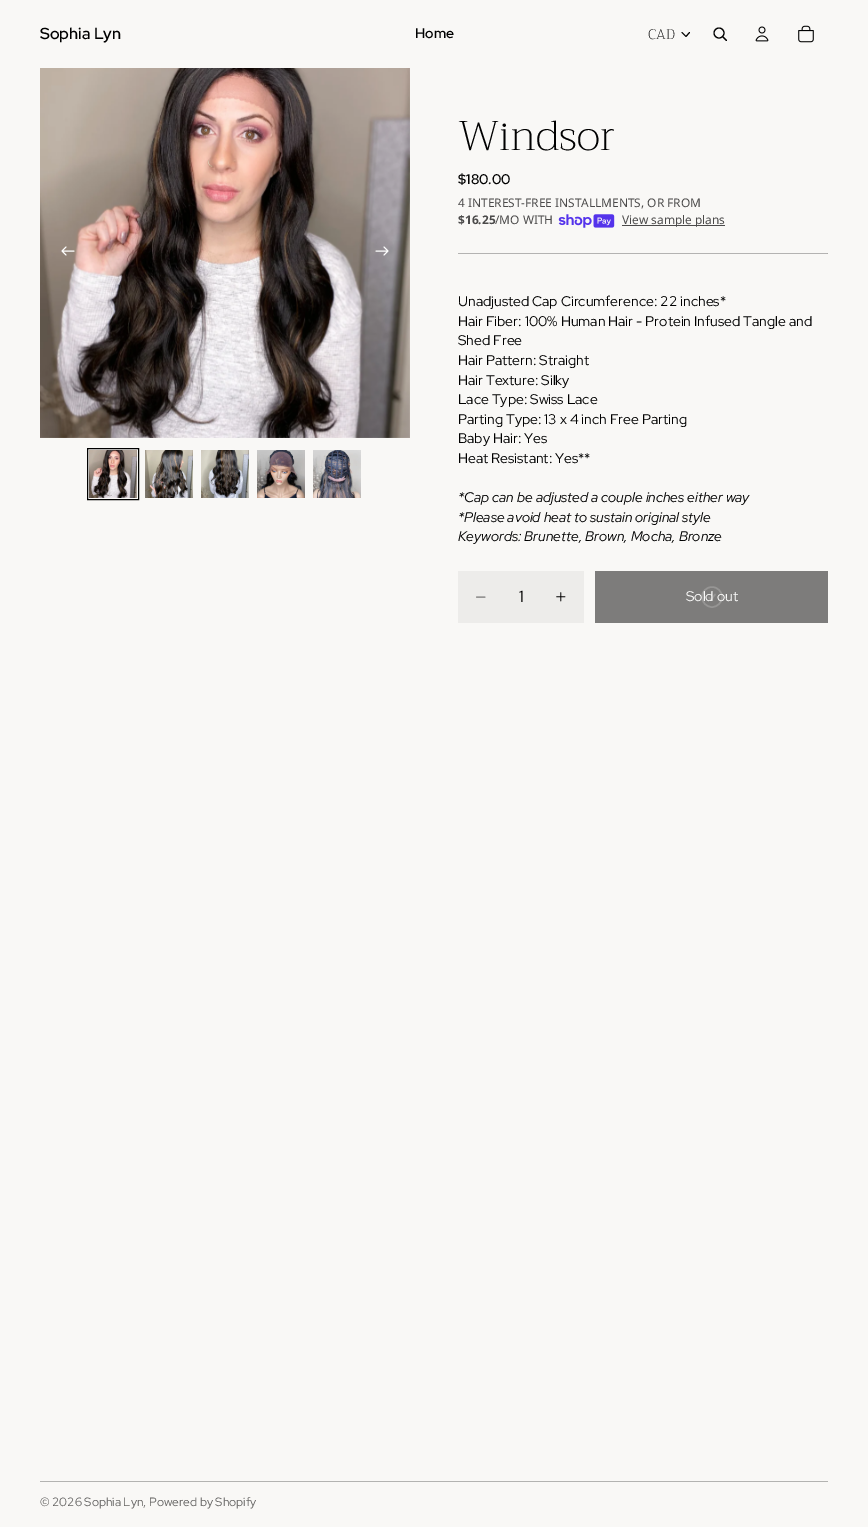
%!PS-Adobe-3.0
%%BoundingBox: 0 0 868 1527
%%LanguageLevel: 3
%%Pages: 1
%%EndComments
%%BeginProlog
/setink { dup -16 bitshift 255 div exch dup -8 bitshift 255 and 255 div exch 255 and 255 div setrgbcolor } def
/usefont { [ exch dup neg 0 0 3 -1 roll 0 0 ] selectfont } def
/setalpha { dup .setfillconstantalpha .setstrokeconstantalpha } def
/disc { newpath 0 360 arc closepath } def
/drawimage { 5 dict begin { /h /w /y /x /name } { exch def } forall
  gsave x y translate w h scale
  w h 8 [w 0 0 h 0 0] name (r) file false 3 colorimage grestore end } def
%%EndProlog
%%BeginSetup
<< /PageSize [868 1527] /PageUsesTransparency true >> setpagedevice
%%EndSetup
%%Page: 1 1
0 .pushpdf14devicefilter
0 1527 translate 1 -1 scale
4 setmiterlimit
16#F9F8F6 setink
0 0 868 1527 rectfill
/RedHatDisplay-SemiBold 16 usefont
16#000000 setink
40 39 moveto (Sophia Lyn) show
/RedHatDisplay-SemiBold 14 usefont
415 38 moveto (Home) show
/Trirong-Light 14 usefont
648 39 moveto (CAD) show
1 setlinecap
1 setlinejoin
689.5 32.5 moveto 686 36.5 lineto 682 32.5 lineto stroke
1.1 setlinewidth
0 setlinecap
0 setlinejoin
719 33 5 disc stroke
1 setlinecap
1 setlinejoin
723 37 moveto 726.5 40.5 lineto stroke
(img1.raw) 755 26 14 16 drawimage
(img2.raw) 798 25 16 18 drawimage
(img3.raw) 40 68 370 370 drawimage
16#FFFFFF setink
1 setlinewidth
74 251 moveto 62 251 lineto 62 251 moveto 66 247 lineto 62 251 moveto 66 255 lineto stroke
376 251 moveto 388 251 lineto 388 251 moveto 384 247 lineto 388 251 moveto 384 255 lineto stroke
(img4.raw) 89 450 48 48 drawimage
16#000000 setink
0 setlinecap
0 setlinejoin
87.5 448.5 51 51 rectstroke
(img5.raw) 145 450 48 48 drawimage
(img6.raw) 201 450 48 48 drawimage
(img7.raw) 257 450 48 48 drawimage
(img8.raw) 313 450 48 48 drawimage
/Trirong-Light 41.5 usefont
458 150 moveto (Windsor) show
/RedHatDisplay-SemiBold 14 usefont
458 184 moveto ($180.00) show
/NotoSans-Regular 11.9 usefont
16#4B4A4A setink
458 207 moveto (4 INTEREST-FREE INSTALLMENTS, OR FROM) show
/NotoSans-Bold 11.9 usefont
458 224 moveto ($16.25) show
/NotoSans-Regular 11.9 usefont
495 224 moveto (/MO WITH) show
(img9.raw) 558 214 57 14 drawimage
622 225 103 1 rectfill
622 224 moveto (View sample plans) show
16#B3B3B1 setink
828 253 moveto 828 254 lineto 827 253 lineto closepath fill
0.28 setalpha
16#000000 setink
828 254 moveto 458 254 lineto 458 253 lineto 827 253 lineto closepath fill
/RedHatDisplay-Regular 14 usefont
1 setalpha
[
    [(Unadjusted Cap Circumference: 22 inches*) 458 306]
    [(Hair Fiber: 100% Human Hair - Protein Infused Tangle and) 458 326]
    [(Shed Free) 458 345]
    [(Hair Pattern: Straight) 458 365]
    [(Hair Texture: Silky) 458 385]
    [(Lace Type: Swiss Lace) 458 404]
    [(Parting Type: 13 x 4 inch Free Parting) 458 424]
    [(Baby Hair: Yes) 458 443]
    [(Heat Resistant: Yes**) 458 463]
] { aload pop moveto show } forall
/RedHatDisplay-Italic 14 usefont
[
    [(*Cap can be adjusted a couple inches either way) 458 502]
    [(*Please avoid heat to sustain original style) 458 522]
    [(Keywords: Brunette, Brown, Mocha, Bronze) 458 541]
] { aload pop moveto show } forall
16#EDECEA setink
458 571 126 52 rectfill
16#777675 setink
1 setlinecap
476.5 597 moveto 485 597 lineto stroke
/RedHatDisplay-Regular 16 usefont
16#000000 setink
519 602 moveto (1) show
(img10.raw) 556 592 10 10 drawimage
16#7D7C7B setink
595 571 233 52 rectfill
/RedHatDisplay-Regular 14 usefont
16#FCFCFB setink
686 601 moveto (Sold out) show
0.2 setalpha
16#F9F8F6 setink
1.5 setlinewidth
0 setlinecap
712 597 10 disc stroke
1 setlinecap
1 setlinejoin
709 597.5 moveto 711 600 lineto 715 594.5 lineto stroke
1 setalpha
16#B3B3B1 setink
40 1481 788 1 rectfill
/RedHatDisplay-Regular 12 usefont
16#646362 setink
40 1506 moveto (© 2026 Sophia Lyn, Powered by Shopify) show
.poppdf14devicefilter showpage
%%EOF
